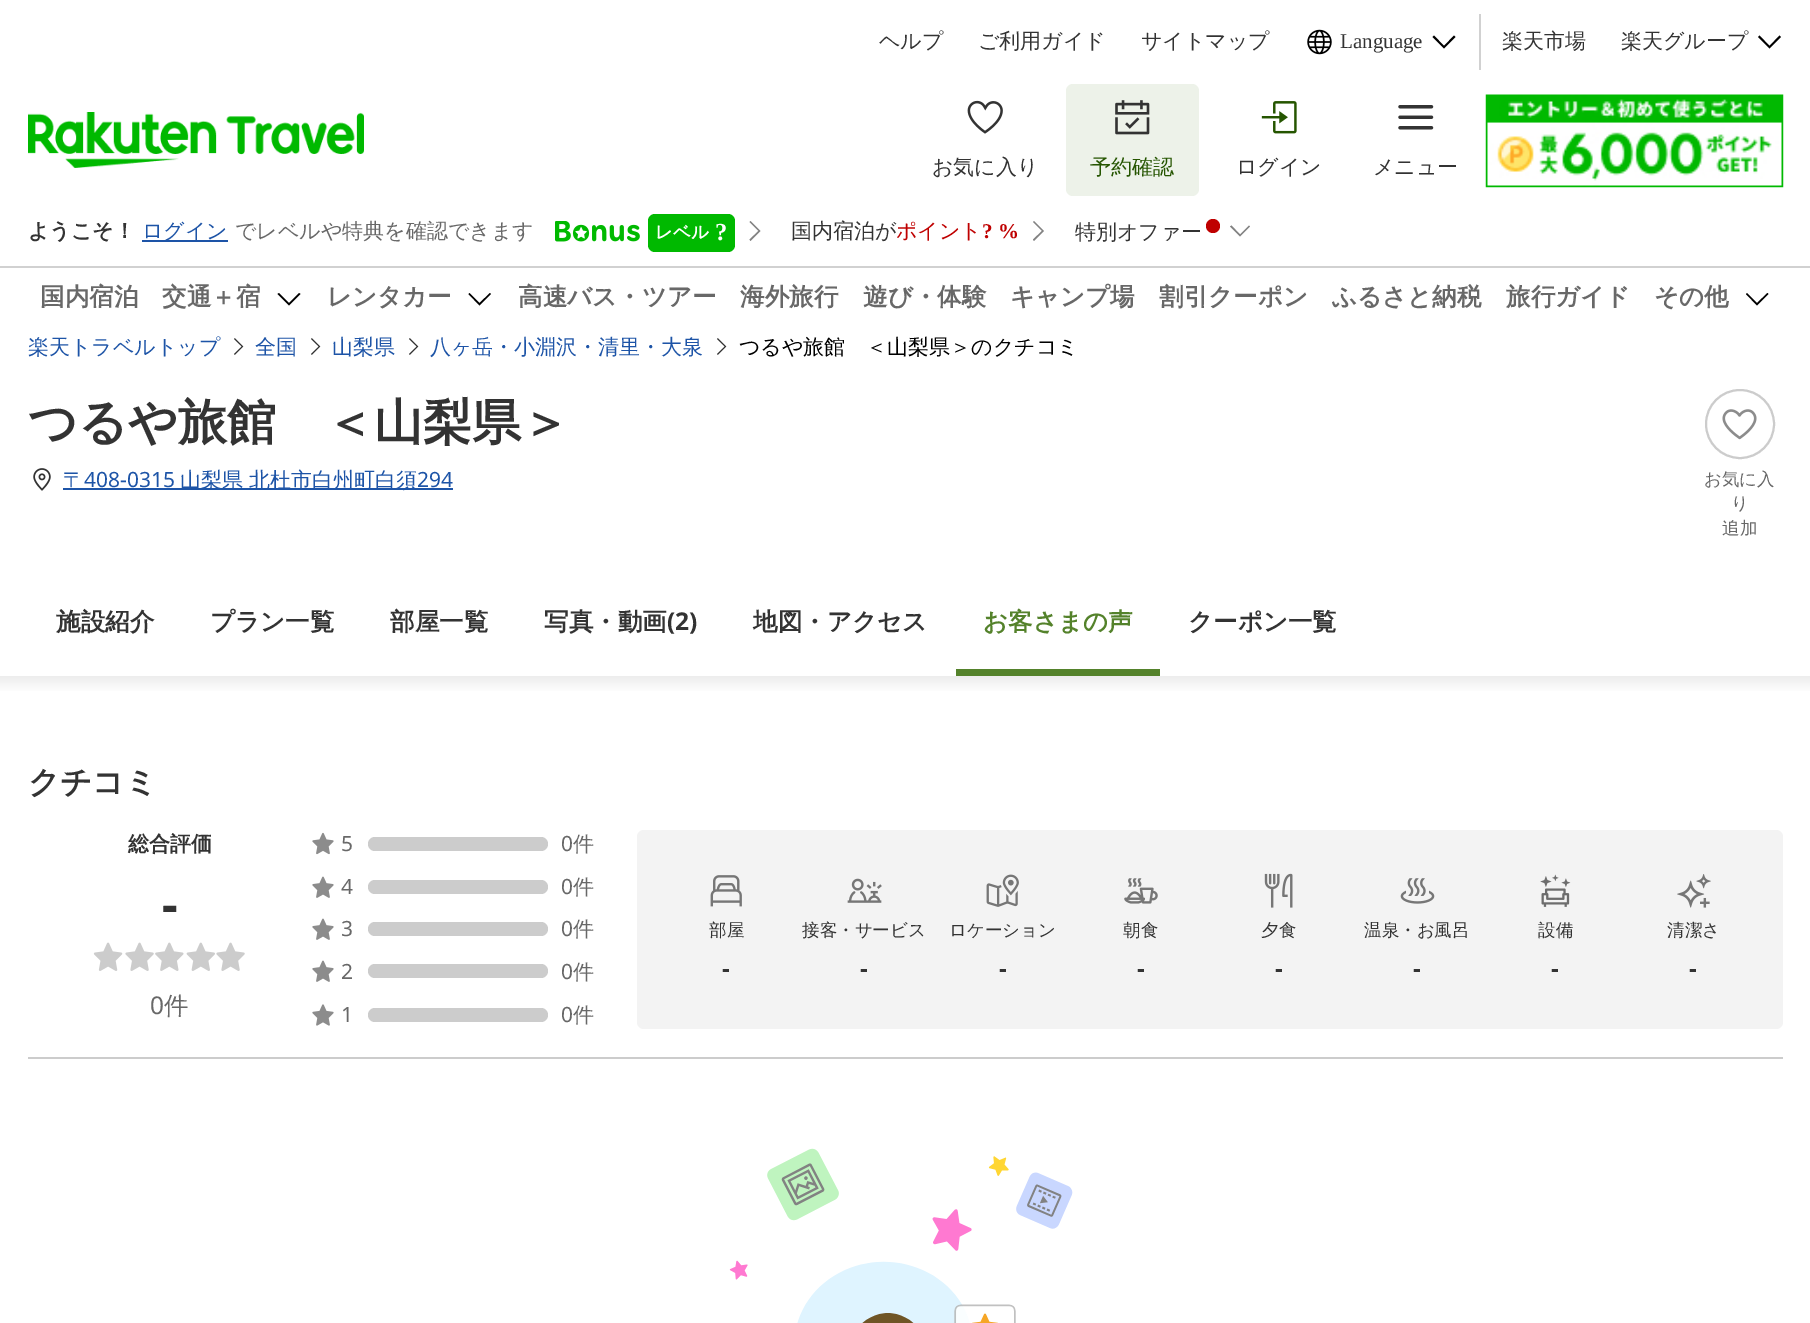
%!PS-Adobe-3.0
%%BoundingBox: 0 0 1810 1323
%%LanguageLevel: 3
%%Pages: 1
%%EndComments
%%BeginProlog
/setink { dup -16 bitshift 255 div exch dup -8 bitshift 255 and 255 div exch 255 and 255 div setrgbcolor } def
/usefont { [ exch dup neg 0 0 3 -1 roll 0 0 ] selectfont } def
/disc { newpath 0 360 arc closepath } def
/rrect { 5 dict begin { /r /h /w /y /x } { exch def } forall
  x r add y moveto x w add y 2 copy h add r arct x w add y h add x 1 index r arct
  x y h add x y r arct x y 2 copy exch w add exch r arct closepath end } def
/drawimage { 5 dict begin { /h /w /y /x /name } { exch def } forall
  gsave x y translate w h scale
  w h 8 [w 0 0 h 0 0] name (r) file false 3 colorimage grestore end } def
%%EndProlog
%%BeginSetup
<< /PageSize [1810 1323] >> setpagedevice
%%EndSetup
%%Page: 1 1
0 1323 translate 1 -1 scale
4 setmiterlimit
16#FFFFFF setink
0 0 1810 1323 rectfill
/WenQuanYiZenHei-Medium 21 usefont
16#333333 setink
[
    [(ヘルプ) 879 48]
    [(ご利用ガイド) 978 48]
    [(サイトマップ) 1141 48]
] { aload pop moveto show } forall
(img1.raw) 1307 29 25 26 drawimage
/LiberationSerif-Regular 21 usefont
1340 48 moveto (Language) show
16#000000 setink
1455.5 37 moveto 1454 35.5 lineto 1444 46 lineto 1434 35.5 lineto 1432.5 37 lineto 1444 48.5 lineto closepath eofill
16#D1D1D1 setink
1479 14 2 56 rectfill
/WenQuanYiZenHei-Medium 21 usefont
16#333333 setink
1502 48 moveto (楽天市場) show
1621 48 moveto (楽天グループ) show
16#000000 setink
1781 37 moveto 1779.5 35.5 lineto 1769.5 46 lineto 1759.5 35.5 lineto 1758 37 lineto 1769.5 48.5 lineto closepath eofill
(img2.raw) 28 112 336 56 drawimage
(img3.raw) 967 100 36 34 drawimage
16#333333 setink
932 174 moveto (お気に入り) show
16#EDF2E9 setink
1066 84 133 112 7 rrect fill
(img4.raw) 1115 100 35 35 drawimage
16#255500 setink
1090 174 moveto (予約確認) show
(img5.raw) 1261 101 36 33 drawimage
16#333333 setink
1236 174 moveto (ログイン) show
(img6.raw) 1398 105 36 25 drawimage
1373 174 moveto (メニュー) show
(img7.raw) 1485 94 299 94 drawimage
/WenQuanYiZenHei-Bold 21 usefont
28 238 moveto (ようこそ！) show
16#1D54A7 setink
142 240 86 2 rectfill
/WenQuanYiZenHei-Medium 21 usefont
142 238 moveto (ログイン) show
16#686868 setink
235 238 moveto (でレベルや特典を確認できます) show
(img8.raw) 555 221 85 21 drawimage
16#00B900 setink
648 214 87 38 7 rrect fill
/WenQuanYiZenHei-Bold 17.5 usefont
16#FFFFFF setink
655 238 moveto (レベル) show
/LiberationSerif-Bold 24.5 usefont
715 240 moveto (?) show
16#828282 setink
750.5 221 moveto 749.5 222 lineto 758.5 231 lineto 749.5 239.5 lineto 750.5 241 lineto 760.5 231 lineto closepath eofill
/WenQuanYiZenHei-Medium 21 usefont
16#333333 setink
791 238 moveto (国内宿泊が) show
16#BF0000 setink
896 238 moveto (ポイント) show
/LiberationSerif-Bold 21 usefont
982 238 moveto (? %) show
16#828282 setink
1034 221 moveto 1033 222 lineto 1042 231 lineto 1033 239.5 lineto 1034 241 lineto 1044 231 lineto closepath eofill
/WenQuanYiZenHei-Medium 21 usefont
16#333333 setink
1075 239 moveto (特別オファー) show
16#BF0000 setink
1213 226 7 disc fill
16#828282 setink
1250 226.5 moveto 1249 225.5 lineto 1240 234.5 lineto 1231.5 225.5 lineto 1230 226.5 lineto 1240 236.5 lineto closepath eofill
16#D1D1D1 setink
0 266 1810 2 rectfill
/WenQuanYiZenHei-Bold 24.5 usefont
16#686868 setink
40 305 moveto (国内宿泊) show
162 305 moveto (交通＋宿) show
16#000000 setink
300.5 294 moveto 299 293 lineto 289 303 lineto 279 293 lineto 277.5 294 lineto 289 305.5 lineto closepath eofill
16#686868 setink
327 305 moveto (レンタカー) show
16#000000 setink
491 294 moveto 490 293 lineto 479.5 303 lineto 469.5 293 lineto 468.5 294 lineto 479.5 305.5 lineto closepath eofill
16#686868 setink
[
    [(高速バス・ツアー) 518 305]
    [(海外旅行) 740 305]
    [(遊び・体験) 863 305]
    [(キャンプ場) 1010 305]
    [(割引クーポン) 1159 305]
    [(ふるさと納税) 1332 305]
    [(旅行ガイド) 1506 305]
    [(その他) 1654 305]
] { aload pop moveto show } forall
16#000000 setink
1768.5 294 moveto 1767.5 293 lineto 1757 303 lineto 1747 293 lineto 1746 294 lineto 1757 305.5 lineto closepath eofill
/WenQuanYiZenHei-Medium 21 usefont
16#1D54A7 setink
28 354 moveto (楽天トラベルトップ) show
(img9.raw) 234 338 10 17 drawimage
255 354 moveto (全国) show
(img9.raw) 311 338 10 17 drawimage
332 354 moveto (山梨県) show
(img9.raw) 409 338 10 17 drawimage
430 354 moveto (八ヶ岳・小淵沢・清里・大泉) show
(img9.raw) 717 338 10 17 drawimage
16#000000 setink
739 354 moveto (つるや旅館　＜山梨県＞のクチコミ) show
/WenQuanYiZenHei-Bold 49 usefont
16#333333 setink
28 439 moveto (つるや旅館　＜山梨県＞) show
(img10.raw) 33 468 18 23 drawimage
/WenQuanYiZenHei-Medium 21 usefont
16#1D54A7 setink
63 487 moveto (〒) show
63 488 390 2 rectfill
/NotoSans-Regular 21 usefont
84 487 moveto (408-0315) show
/WenQuanYiZenHei-Medium 21 usefont
180 487 moveto (山梨県 北杜市白州町白須) show
/NotoSans-Regular 21 usefont
417 487 moveto (294) show
16#CCCCCC setink
2 setlinewidth
1740 424 34 disc stroke
(img11.raw) 1722 409 35 31 drawimage
/WenQuanYiZenHei-Medium 17.5 usefont
16#686868 setink
[
    [(お気に入) 1704 485]
    [(り) 1731 509]
    [(追加) 1722 534]
] { aload pop moveto show } forall
/WenQuanYiZenHei-Bold 24.5 usefont
16#333333 setink
[
    [(施設紹介) 56 630]
    [(プラン一覧) 210 630]
    [(部屋一覧) 390 630]
    [(写真・動画) 544 630]
] { aload pop moveto show } forall
/NotoSans-Bold 24.5 usefont
667 630 moveto (\(2\)) show
/WenQuanYiZenHei-Bold 24.5 usefont
753 630 moveto (地図・アクセス) show
16#54822B setink
956 669 204 7 rectfill
983 630 moveto (お客さまの声) show
16#333333 setink
1188 630 moveto (クーポン一覧) show
gsave 0 676 moveto 1810 676 lineto 1810 691 lineto 0 691 lineto closepath clip newpath
<< /ShadingType 2 /ColorSpace /DeviceRGB /Coords [906 693 906 676] /Extend [true true] /Function << /FunctionType 2 /Domain [0 1] /C0 [1 1 1] /C1 [0.929 0.929 0.929] /N 1 >> >> shfill grestore
/WenQuanYiZenHei-Bold 31.5 usefont
28 793 moveto (クチコミ) show
/WenQuanYiZenHei-Bold 21 usefont
128 851 moveto (総合評価) show
/NotoSans-Bold 49 usefont
162 922 moveto (-) show
(img12.raw) 93 942 30 29 drawimage
(img13.raw) 125 942 29 29 drawimage
(img14.raw) 155 942 29 29 drawimage
(img15.raw) 186 942 29 29 drawimage
(img13.raw) 216 942 29 29 drawimage
/NotoSans-Regular 24.5 usefont
16#686868 setink
150 1014 moveto (0) show
/WenQuanYiZenHei-Medium 24.5 usefont
164 1014 moveto (件) show
(img16.raw) 312 832 22 23 drawimage
/NotoSans-Regular 21 usefont
341 851 moveto (5) show
16#CCCCCC setink
368 837 180 14 7 rrect fill
16#686868 setink
561 851 moveto (0) show
/WenQuanYiZenHei-Medium 21 usefont
573 851 moveto (件) show
(img17.raw) 312 876 22 22 drawimage
/NotoSans-Regular 21 usefont
341 894 moveto (4) show
16#CCCCCC setink
368 880 180 14 7 rrect fill
16#686868 setink
561 894 moveto (0) show
/WenQuanYiZenHei-Medium 21 usefont
573 894 moveto (件) show
(img17.raw) 312 918 22 22 drawimage
/NotoSans-Regular 21 usefont
341 936 moveto (3) show
16#CCCCCC setink
368 922 180 14 7 rrect fill
16#686868 setink
561 936 moveto (0) show
/WenQuanYiZenHei-Medium 21 usefont
573 936 moveto (件) show
(img17.raw) 312 960 22 22 drawimage
/NotoSans-Regular 21 usefont
341 979 moveto (2) show
16#CCCCCC setink
368 964 180 14 7 rrect fill
16#686868 setink
561 979 moveto (0) show
/WenQuanYiZenHei-Medium 21 usefont
573 979 moveto (件) show
(img18.raw) 312 1004 22 22 drawimage
/NotoSans-Regular 21 usefont
341 1022 moveto (1) show
16#CCCCCC setink
368 1008 180 14 7 rrect fill
16#686868 setink
561 1022 moveto (0) show
/WenQuanYiZenHei-Medium 21 usefont
573 1022 moveto (件) show
16#F3F3F3 setink
637 830 1146 199 7 rrect fill
(img19.raw) 710 875 32 32 drawimage
/WenQuanYiZenHei-Medium 17.5 usefont
16#333333 setink
709 936 moveto (部屋) show
/NotoSans-Bold 24.5 usefont
722 977 moveto (-) show
(img20.raw) 847 878 35 25 drawimage
/WenQuanYiZenHei-Medium 17.5 usefont
802 936 moveto (接客・サービス) show
/NotoSans-Bold 24.5 usefont
860 977 moveto (-) show
(img21.raw) 986 874 33 33 drawimage
/WenQuanYiZenHei-Medium 17.5 usefont
949 936 moveto (ロケーション) show
/NotoSans-Bold 24.5 usefont
999 977 moveto (-) show
(img22.raw) 1124 878 34 26 drawimage
/WenQuanYiZenHei-Medium 17.5 usefont
1123 936 moveto (朝食) show
/NotoSans-Bold 24.5 usefont
1137 977 moveto (-) show
(img23.raw) 1264 873 29 35 drawimage
/WenQuanYiZenHei-Medium 17.5 usefont
1261 936 moveto (夕食) show
/NotoSans-Bold 24.5 usefont
1275 977 moveto (-) show
(img24.raw) 1400 878 35 26 drawimage
/WenQuanYiZenHei-Medium 17.5 usefont
1364 936 moveto (温泉・お風呂) show
/NotoSans-Bold 24.5 usefont
1413 977 moveto (-) show
(img25.raw) 1540 874 31 33 drawimage
/WenQuanYiZenHei-Medium 17.5 usefont
1538 936 moveto (設備) show
/NotoSans-Bold 24.5 usefont
1551 977 moveto (-) show
(img26.raw) 1677 874 34 34 drawimage
/WenQuanYiZenHei-Medium 17.5 usefont
1667 936 moveto (清潔さ) show
/NotoSans-Bold 24.5 usefont
1689 977 moveto (-) show
16#CCCCCC setink
28 1057 1755 2 rectfill
(img27.raw) 729 1148 344 175 drawimage
showpage
%%EOF
